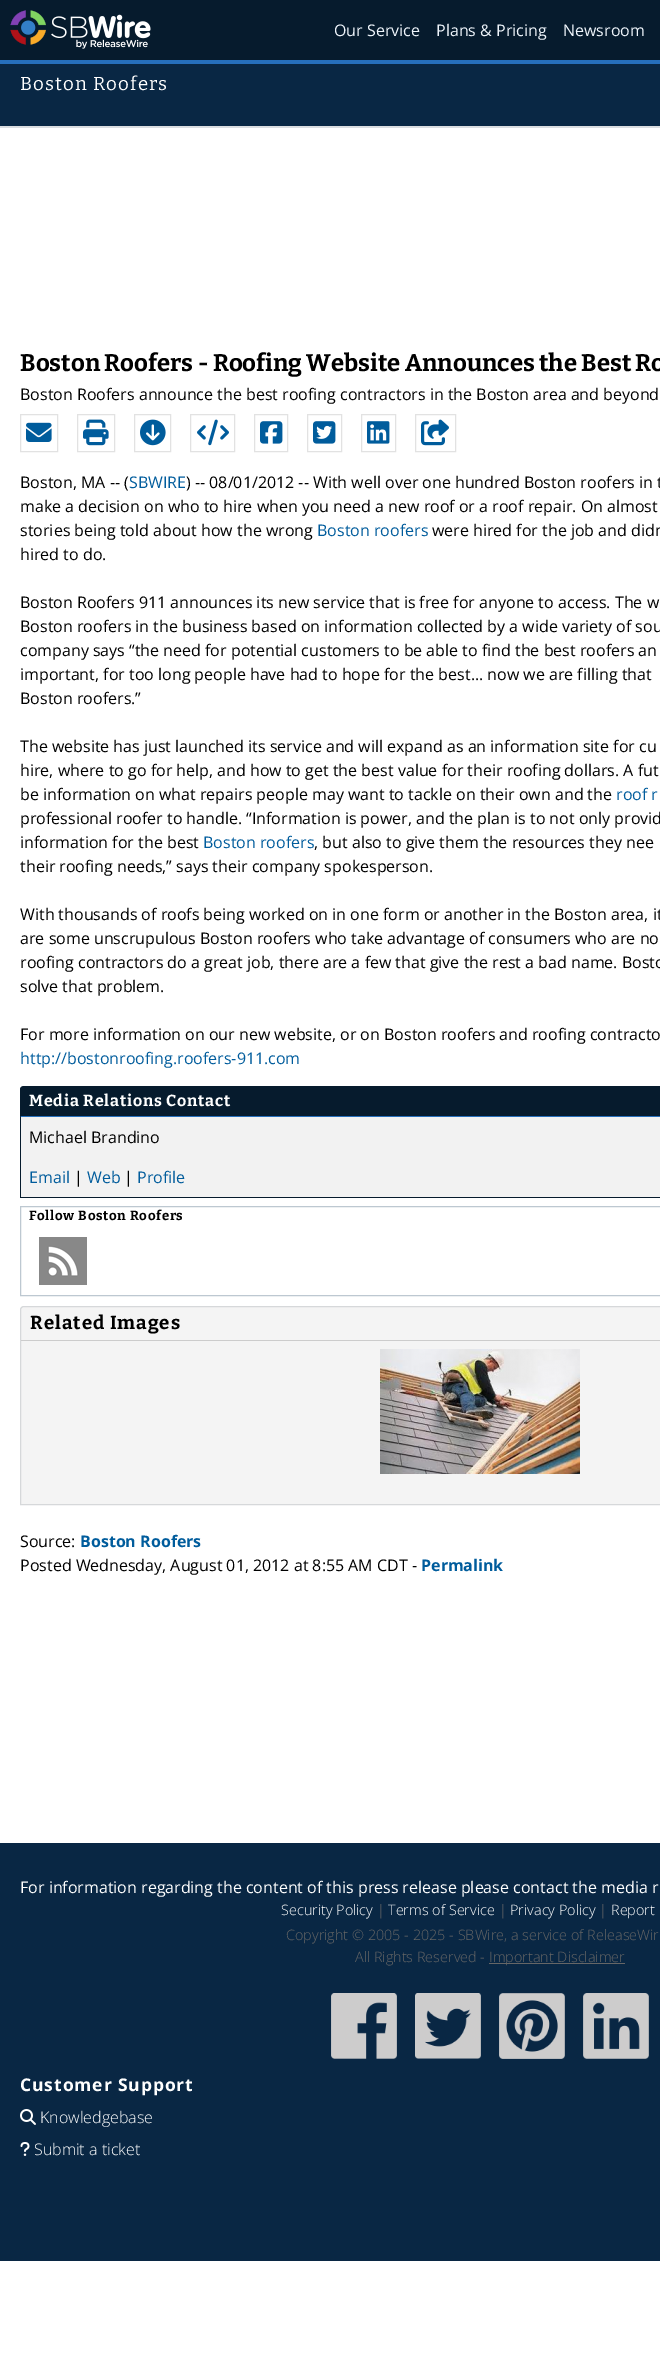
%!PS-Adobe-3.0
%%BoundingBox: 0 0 660 2358
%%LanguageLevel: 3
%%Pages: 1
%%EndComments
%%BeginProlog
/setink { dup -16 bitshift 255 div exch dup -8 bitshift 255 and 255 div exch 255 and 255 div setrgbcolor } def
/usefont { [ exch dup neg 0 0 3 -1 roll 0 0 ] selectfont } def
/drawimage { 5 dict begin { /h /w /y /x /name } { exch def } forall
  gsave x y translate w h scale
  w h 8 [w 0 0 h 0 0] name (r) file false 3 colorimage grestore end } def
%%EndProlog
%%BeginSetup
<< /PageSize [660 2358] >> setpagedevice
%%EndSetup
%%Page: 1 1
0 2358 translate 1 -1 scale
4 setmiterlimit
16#FFFFFF setink
0 0 660 2358 rectfill
16#061B2D setink
0 0 660 60 rectfill
16#266FBC setink
0 60 660 4 rectfill
(img1.raw) 10 10 141 39 drawimage
/OpenSans-Regular 16 usefont
16#EFF5FB setink
[
    [(Our Service) 334 36]
    [(Plans & Pricing) 436 36]
    [(Newsroom) 563 36]
] { aload pop moveto show } forall
16#092744 setink
0 64 660 62 rectfill
16#DADDE0 setink
0 126 660 2 rectfill
/Bitter-Regular 18.75 usefont
16#FFFFFF setink
20 90 moveto 1.1 0 (Boston Roofers) ashow
/Bitter-Bold 24 usefont
16#000000 setink
20 371 moveto (Boston Roofers - Roofing Website Announces the Best Ro) show
/OpenSans-Regular 16 usefont
20 400 moveto (Boston Roofers announce the best roofing contractors in the Boston area and beyond) show
16#E2E2E2 setink
20.5 414.5 37 37 rectstroke
(img2.raw) 26 422 26 20 drawimage
77.5 414.5 37 37 rectstroke
(img3.raw) 83 419 26 27 drawimage
134.5 414.5 36 37 rectstroke
(img4.raw) 140 419 26 27 drawimage
190.5 414.5 44 37 rectstroke
(img5.raw) 197 419 32 27 drawimage
254.5 414.5 33 37 rectstroke
(img6.raw) 260 421 23 23 drawimage
307.5 414.5 34 37 rectstroke
(img7.raw) 313 421 23 23 drawimage
361.5 414.5 34 37 rectstroke
(img8.raw) 367 421 23 23 drawimage
415.5 414.5 40 37 rectstroke
(img9.raw) 421 419 28 27 drawimage
16#000000 setink
20 488 moveto (Boston, MA -- \() show
16#005C9C setink
129 488 moveto (SBWIRE) show
16#000000 setink
[
    [(\) -- 08/01/2012 -- With well over one hundred Boston roofers in t) 186 488]
    [(make a decision on who to hire when you need a new roof or a roof repair. On almost) 20 512]
    [(stories being told about how the wrong) 20 536]
] { aload pop moveto show } forall
16#005C9C setink
317 536 moveto (Boston roofers) show
16#000000 setink
[
    [(were hired for the job and didn) 432 536]
    [(hired to do.) 20 560]
    [(Boston Roofers 911 announces its new service that is free for anyone to access. The w) 20 608]
    [(Boston roofers in the business based on information collected by a wide variety of sou) 20 632]
    [(company says “the need for potential customers to be able to find the best roofers an) 20 656]
    [(important, for too long people have had to hope for the best... now we are filling that) 20 680]
    [(Boston roofers.”) 20 704]
    [(The website has just launched its service and will expand as an information site for cu) 20 752]
    [(hire, where to go for help, and how to get the best value for their roofing dollars. A fut) 20 776]
    [(be information on what repairs people may want to tackle on their own and the) 20 800]
] { aload pop moveto show } forall
16#005C9C setink
616 800 moveto (roof r) show
16#000000 setink
20 824 moveto (professional roofer to handle. “Information is power, and the plan is to not only provid) show
20 848 moveto (information for the best) show
16#005C9C setink
203 848 moveto (Boston roofers) show
16#000000 setink
[
    [(, but also to give them the resources they nee) 314 848]
    [(their roofing needs,” says their company spokesperson.) 20 872]
    [(With thousands of roofs being worked on in one form or another in the Boston area, it) 20 920]
    [(are some unscrupulous Boston roofers who take advantage of consumers who are no) 20 944]
    [(roofing contractors do a great job, there are a few that give the rest a bad name. Bosto) 20 968]
    [(solve that problem.) 20 992]
    [(For more information on our new website, or on Boston roofers and roofing contracto) 20 1040]
] { aload pop moveto show } forall
16#005C9C setink
20 1064 moveto (http://bostonroofing.roofers-911.com) show
16#061B2D setink
24 1086 moveto 660 1086 lineto 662 1086 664 1088 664 1090 curveto 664 1117 lineto 20 1117 lineto 20 1090 lineto 20 1088 22 1086 24 1086 curveto closepath fill
24 1086 moveto 21 1087 lineto 22 1088 lineto 24 1087 lineto 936 1087 lineto 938 1088 lineto 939 1087 lineto 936 1086 lineto closepath fill
16#266FBC setink
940 1117 moveto 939 1116 lineto 21 1116 lineto 20 1117 lineto closepath fill
16#061B2D setink
20 1117 moveto 21 1116 lineto 21 1090 lineto 21 1089 21 1088 22 1088 curveto 21 1087 lineto 20.5 1088 20 1089 20 1090 curveto closepath fill
/Bitter-Bold 16 usefont
16#FFFFFF setink
29 1106 moveto 0.8 0 (Media Relations Contact) ashow
[
    [21 1117 639 80 16#F2F2F2]
    [20 1197 640 1 16#061B2D]
    [20 1117 1 81 16#061B2D]
] { aload pop setink rectfill } forall
/OpenSans-Regular 16 usefont
16#000000 setink
29 1143 moveto (Michael Brandino) show
16#005C9C setink
29 1183 moveto (Email) show
16#000000 setink
74 1183 moveto (|) show
16#005C9C setink
87 1183 moveto (Web) show
16#000000 setink
124 1183 moveto (|) show
16#005C9C setink
137 1183 moveto (Profile) show
16#BDC8D1 setink
20.5 1206.5 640 89 rectstroke
/Bitter-Bold 13.25 usefont
16#000000 setink
29 1220 moveto 0.7 0 (Follow Boston Roofers) ashow
(img10.raw) 39 1237 48 48 drawimage
16#F4F4F4 setink
24 1306.5 moveto 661 1306.5 lineto 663 1306.5 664.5 1308 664.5 1310 curveto 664.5 1504.5 lineto 20.5 1504.5 lineto 20.5 1310 lineto 20.5 1308 22 1306.5 24 1306.5 curveto closepath gsave fill grestore
16#D6D8DA setink
stroke
16#CCCCCC setink
21 1340 639 1 rectfill
/Bitter-Bold 18.75 usefont
16#000000 setink
30 1329 moveto 1 0 (Related Images) ashow
(img11.raw) 380 1349 200 125 drawimage
/OpenSans-Regular 16 usefont
20 1547 moveto (Source:) show
/OpenSans-Bold 16 usefont
16#005C9C setink
80 1547 moveto (Boston Roofers) show
/OpenSans-Regular 16 usefont
16#000000 setink
20 1571 moveto (Posted Wednesday, August 01, 2012 at 8:55 AM CDT -) show
/OpenSans-Bold 16 usefont
16#005C9C setink
421 1571 moveto (Permalink) show
16#092744 setink
0 1843 660 418 rectfill
/OpenSans-Regular 16 usefont
16#FFFFFF setink
20 1893 moveto (For information regarding the content of this press release please contact the media r) show
/OpenSans-Light 14.4 usefont
281 1915 moveto (Security Policy) show
16#666666 setink
377 1915 moveto (|) show
16#FFFFFF setink
388 1915 moveto (Terms of Service) show
16#666666 setink
499 1915 moveto (|) show
16#FFFFFF setink
510 1915 moveto (Privacy Policy) show
16#666666 setink
599 1915 moveto (|) show
16#FFFFFF setink
611 1915 moveto (Report) show
16#666666 setink
286 1940 moveto (Copyright © 2005 - 2025 - SBWire, a service of ReleaseWir) show
355 1962 moveto (All Rights Reserved -) show
489 1963 136 1 rectfill
489 1962 moveto (Important Disclaimer) show
(img12.raw) 331 1993 66 66 drawimage
(img13.raw) 415 1993 66 66 drawimage
(img14.raw) 499 1993 66 66 drawimage
(img15.raw) 583 1993 66 66 drawimage
/OpenSans-Bold 17.5 usefont
16#FFFFFF setink
20 2091 moveto 0.9 0 (Customer Support) ashow
(img16.raw) 20 2109 16 16 drawimage
/OpenSans-Light 16 usefont
40 2123 moveto (Knowledgebase) show
(img17.raw) 20 2142 10 14 drawimage
34 2155 moveto (Submit a ticket) show
showpage
%%EOF
